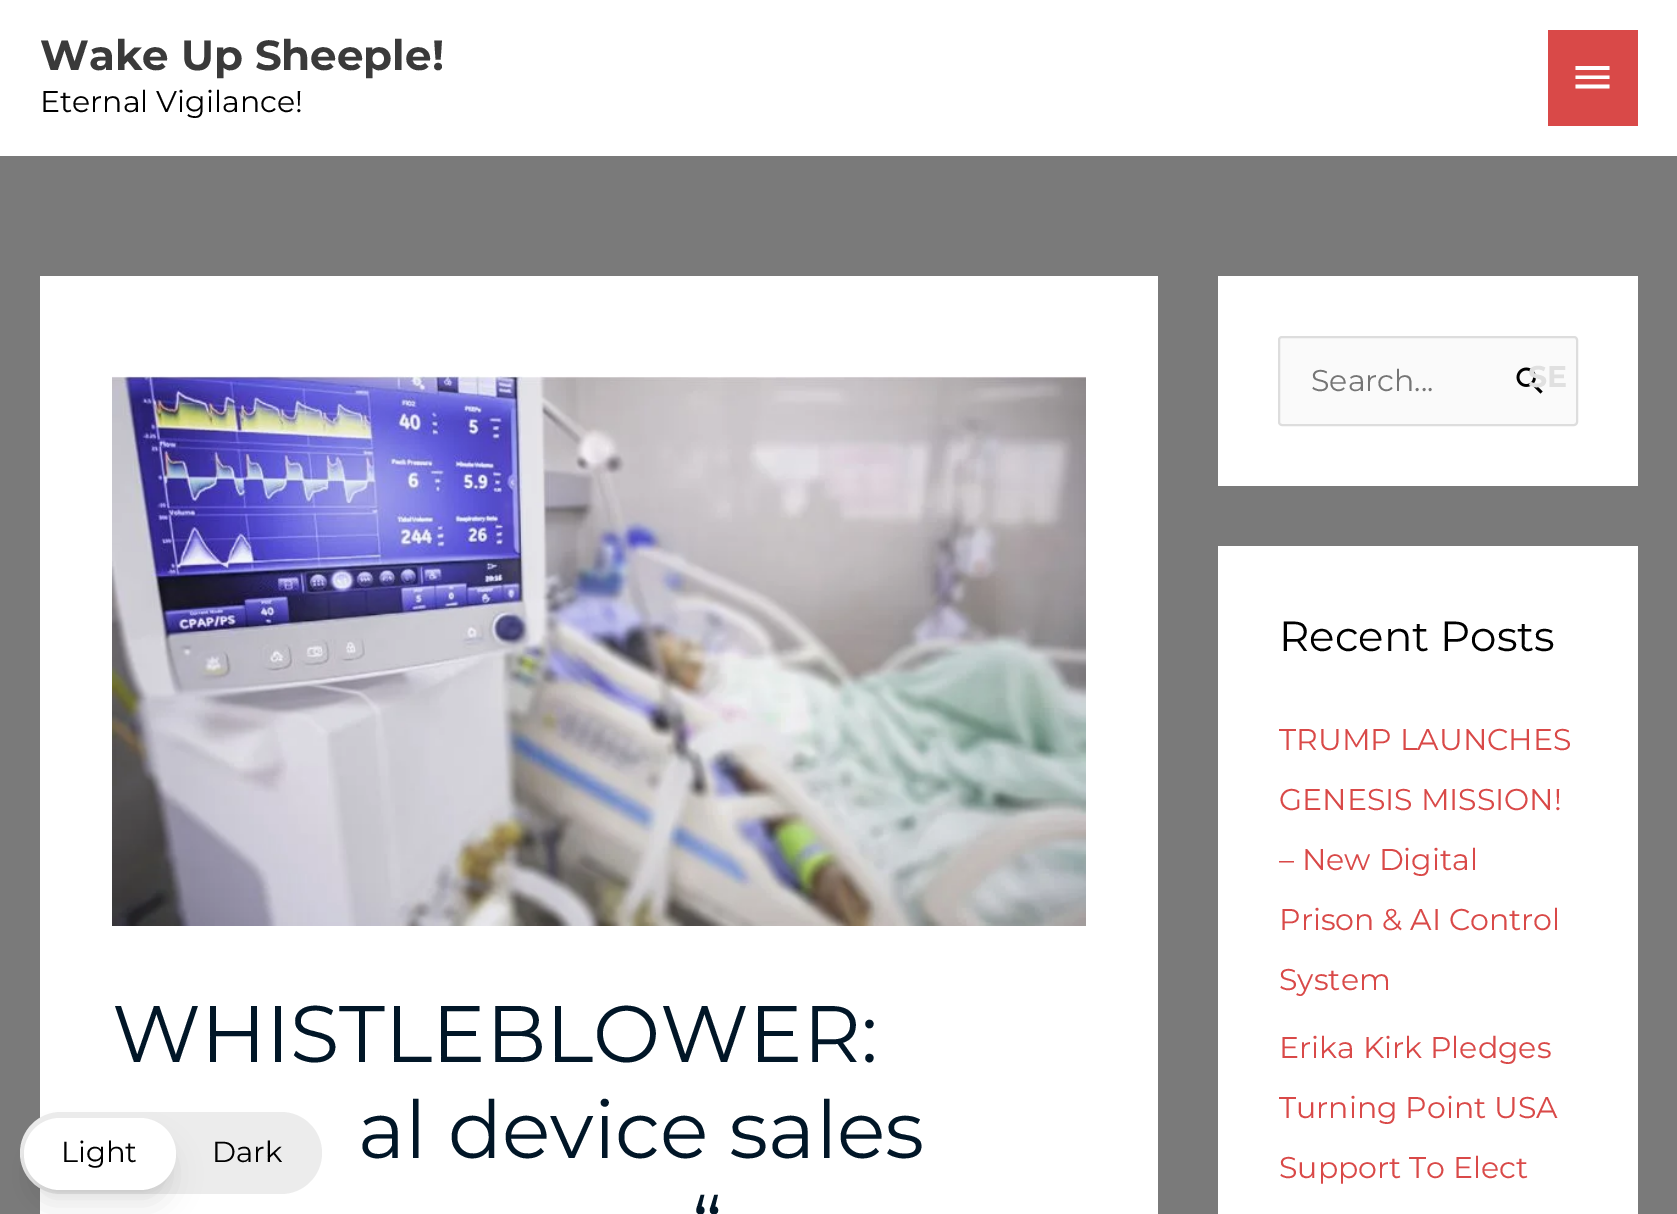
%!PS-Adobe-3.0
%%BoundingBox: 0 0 1677 1214
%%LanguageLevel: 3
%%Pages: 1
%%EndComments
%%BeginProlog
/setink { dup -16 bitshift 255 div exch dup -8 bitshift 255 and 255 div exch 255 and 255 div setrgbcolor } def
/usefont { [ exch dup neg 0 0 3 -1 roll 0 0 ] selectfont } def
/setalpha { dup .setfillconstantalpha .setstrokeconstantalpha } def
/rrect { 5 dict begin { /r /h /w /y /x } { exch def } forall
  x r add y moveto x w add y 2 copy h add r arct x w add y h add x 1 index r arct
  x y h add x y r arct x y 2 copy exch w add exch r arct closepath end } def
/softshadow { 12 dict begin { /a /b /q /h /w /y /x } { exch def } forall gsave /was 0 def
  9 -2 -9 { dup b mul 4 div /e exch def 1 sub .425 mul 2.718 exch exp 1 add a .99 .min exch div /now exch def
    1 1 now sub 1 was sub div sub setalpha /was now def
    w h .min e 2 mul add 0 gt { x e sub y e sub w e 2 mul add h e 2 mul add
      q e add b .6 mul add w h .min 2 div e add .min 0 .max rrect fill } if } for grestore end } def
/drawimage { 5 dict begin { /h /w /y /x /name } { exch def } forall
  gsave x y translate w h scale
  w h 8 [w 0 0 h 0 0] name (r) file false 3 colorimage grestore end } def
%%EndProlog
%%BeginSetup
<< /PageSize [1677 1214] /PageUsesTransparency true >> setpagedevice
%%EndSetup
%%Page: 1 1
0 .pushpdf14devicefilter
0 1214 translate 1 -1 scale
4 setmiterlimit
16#7A7A7A setink
0 0 1677 1214 rectfill
16#FFFFFF setink
0 0 1677 156 rectfill
/Montserrat-Bold 42 usefont
16#3A3A3A setink
40 70 moveto (Wake Up Sheeple!) show
/Montserrat-Regular 30 usefont
16#000000 setink
40 112 moveto (Eternal Vigilance!) show
16#D94948 setink
1548 30 90 96 rectfill
16#FFFFFF setink
1575.5 66 moveto 1609.5 66 lineto 1609.5 70 lineto 1575.5 70 lineto closepath 1575.5 79 moveto 1575.5 75.5 lineto 1609.5 75.5 lineto 1609.5 79 lineto closepath 1575.5 88.5 moveto 1575.5 84.5 lineto 1609.5 84.5 lineto 1609.5 88.5 lineto closepath fill
40 276 1118 938 rectfill
(img1.raw) 112 376 974 550 drawimage
/Montserrat-Regular 80 usefont
16#011627 setink
[
    [(WHISTLEBLOWER:) 112 1062]
    [(al device sales) 358 1158]
    [(“) 692 1254]
] { aload pop moveto show } forall
16#FFFFFF setink
1218 276 420 210 rectfill
16#FAFAFA setink
1279 337 298 88 3 rrect gsave fill grestore
16#DDDDDD setink
2 setlinewidth
stroke
(img2.raw) 1516 367 27 27 drawimage
/Montserrat-Bold 30 usefont
16#E0E0E0 setink
1528 387 moveto (SE) show
/Montserrat-Regular 30 usefont
16#757575 setink
1311 391 moveto (Search...) show
16#FFFFFF setink
1218 546 420 668 rectfill
/Montserrat-Regular 42 usefont
16#000000 setink
1279 651 moveto (Recent Posts) show
/Montserrat-Regular 30 usefont
16#D94948 setink
[
    [(TRUMP LAUNCHES) 1279 750]
    [(GENESIS MISSION!) 1279 810]
    [(– New Digital) 1279 870]
    [(Prison & AI Control) 1279 930]
    [(System) 1279 990]
    [(Erika Kirk Pledges) 1279 1058]
    [(Turning Point USA) 1279 1118]
    [(Support To Elect) 1279 1178]
] { aload pop moveto show } forall
16#ECECEC setink
20 1112 302 82 41 rrect fill
16#000000 setink
32 1134 136 56 28 6 0.1 softshadow
30 1144 140 60 30 15 0.1 softshadow
16#FFFFFF setink
24 1118 152 72 36 rrect fill
/Montserrat-Regular 29 usefont
16#000000 setink
61 1162 moveto (Light) show
212 1162 moveto (Dark) show
.poppdf14devicefilter showpage
%%EOF
